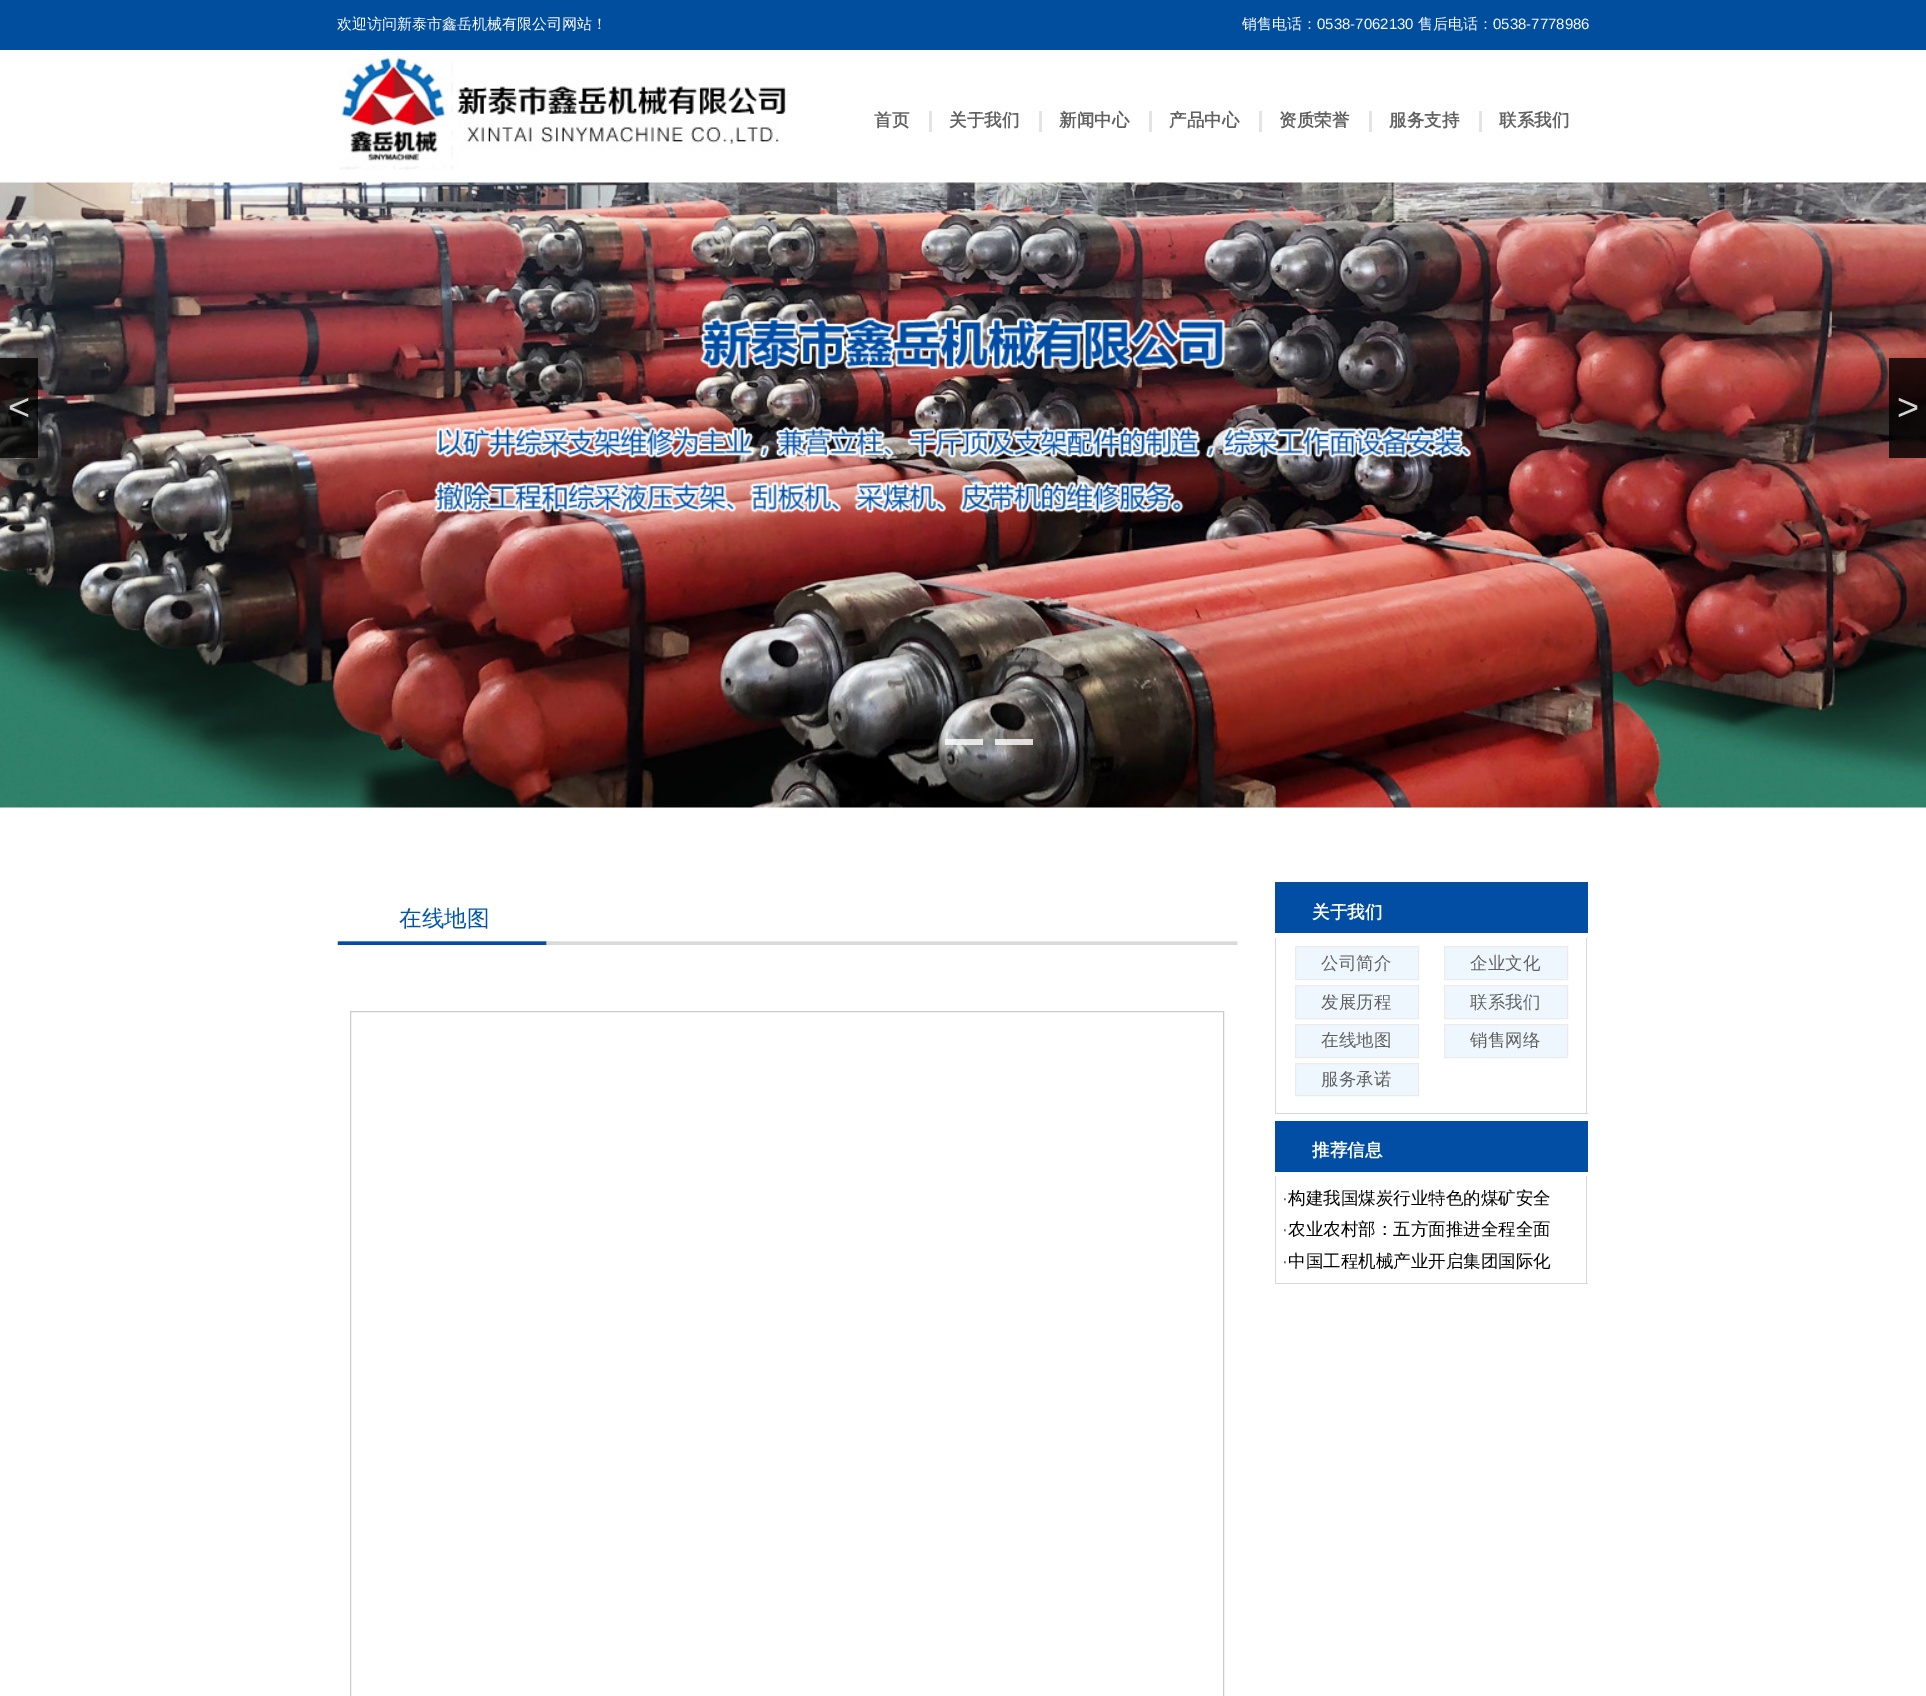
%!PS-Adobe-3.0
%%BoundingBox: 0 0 1926 1696
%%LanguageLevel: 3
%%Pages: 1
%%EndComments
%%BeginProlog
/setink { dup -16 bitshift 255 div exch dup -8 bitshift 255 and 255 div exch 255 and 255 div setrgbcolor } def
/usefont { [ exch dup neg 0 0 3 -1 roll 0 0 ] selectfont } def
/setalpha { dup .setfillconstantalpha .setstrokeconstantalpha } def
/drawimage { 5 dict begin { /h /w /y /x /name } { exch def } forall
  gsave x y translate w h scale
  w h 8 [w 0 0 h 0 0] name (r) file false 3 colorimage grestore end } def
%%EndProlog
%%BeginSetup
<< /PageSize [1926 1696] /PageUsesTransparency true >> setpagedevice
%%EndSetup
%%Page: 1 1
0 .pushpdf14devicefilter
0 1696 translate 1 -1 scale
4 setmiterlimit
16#FFFFFF setink
0 0 1926 1696 rectfill
16#004E9D setink
0 0 1926 50 rectfill
/WenQuanYiZenHei-Medium 15 usefont
16#FFFFFF setink
337 29 moveto (欢迎访问新泰市鑫岳机械有限公司网站！) show
1242 29 moveto (销售电话：) show
/LiberationSans-Regular 15 usefont
1317 29 moveto (0538-7062130) show
/WenQuanYiZenHei-Medium 15 usefont
1418 29 moveto (售后电话：) show
/LiberationSans-Regular 15 usefont
1493 29 moveto (0538-7778986) show
(img1.raw) 339 50 447 120 drawimage
16#E4E4E4 setink
929 111 3 21 rectfill
/WenQuanYiZenHei-Bold 17.5 usefont
16#616161 setink
874 126 moveto (首页) show
16#E4E4E4 setink
1039 111 3 21 rectfill
16#616161 setink
949 126 moveto (关于我们) show
16#E4E4E4 setink
1149 111 3 21 rectfill
16#616161 setink
1059 126 moveto (新闻中心) show
16#E4E4E4 setink
1259 111 3 21 rectfill
16#616161 setink
1169 126 moveto (产品中心) show
16#E4E4E4 setink
1369 111 3 21 rectfill
16#616161 setink
1279 126 moveto (资质荣誉) show
16#E4E4E4 setink
1479 111 3 21 rectfill
16#616161 setink
1389 126 moveto (服务支持) show
1499 126 moveto (联系我们) show
(img2.raw) 0 182 1926 626 drawimage
0.8 setalpha
16#000000 setink
0 358 38 100 rectfill
/LiberationSans-Regular 38 usefont
1 setalpha
16#D1D1D0 setink
8 420 moveto (<) show
0.8 setalpha
16#000000 setink
1889 358 37 100 rectfill
1 setalpha
16#D1D1D0 setink
1897 420 moveto (>) show
0.8 setalpha
[
    [895 739 38 6 16#000000]
    [945 739 38 6 16#FFFFFF]
    [995 739 38 6 16#FFFFFF]
] { aload pop setink rectfill } forall
1 setalpha
(img3.raw) 337 941 901 4 drawimage
/WenQuanYiZenHei-Medium 22.5 usefont
16#0055AA setink
399 926 moveto (在线地图) show
16#CCCCCC setink
350.5 1011.5 873 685 rectstroke
16#014EA4 setink
1275 882 313 51 rectfill
/WenQuanYiZenHei-Bold 17.5 usefont
16#FFFFFF setink
1312 918 moveto (关于我们) show
[
    [1586 938 1 176 16#D8D8D8]
    [1275 1113 313 1 16#D8D8D8]
    [1275 938 1 176 16#D8D8D8]
] { aload pop setink rectfill } forall
16#EFF7FE setink
1295.5 946.5 moveto 1418.5 946.5 lineto 1418.5 979.5 lineto 1295.5 979.5 lineto closepath gsave fill grestore
16#EBEBEB setink
stroke
/WenQuanYiZenHei-Medium 17.5 usefont
16#616161 setink
1321 969 moveto (公司简介) show
16#EFF7FE setink
1444.5 946.5 moveto 1567.5 946.5 lineto 1567.5 979.5 lineto 1444.5 979.5 lineto closepath gsave fill grestore
16#EBEBEB setink
stroke
16#616161 setink
1470 969 moveto (企业文化) show
16#EFF7FE setink
1295.5 985.5 moveto 1418.5 985.5 lineto 1418.5 1018.5 lineto 1295.5 1018.5 lineto closepath gsave fill grestore
16#EBEBEB setink
stroke
16#616161 setink
1321 1008 moveto (发展历程) show
16#EFF7FE setink
1444.5 985.5 moveto 1567.5 985.5 lineto 1567.5 1018.5 lineto 1444.5 1018.5 lineto closepath gsave fill grestore
16#EBEBEB setink
stroke
16#616161 setink
1470 1008 moveto (联系我们) show
16#EFF7FE setink
1295.5 1024.5 moveto 1418.5 1024.5 lineto 1418.5 1057.5 lineto 1295.5 1057.5 lineto closepath gsave fill grestore
16#EBEBEB setink
stroke
16#616161 setink
1321 1046 moveto (在线地图) show
16#EFF7FE setink
1444.5 1024.5 moveto 1567.5 1024.5 lineto 1567.5 1057.5 lineto 1444.5 1057.5 lineto closepath gsave fill grestore
16#EBEBEB setink
stroke
16#616161 setink
1470 1046 moveto (销售网络) show
16#EFF7FE setink
1295.5 1063.5 moveto 1418.5 1063.5 lineto 1418.5 1095.5 lineto 1295.5 1095.5 lineto closepath gsave fill grestore
16#EBEBEB setink
stroke
16#616161 setink
1321 1085 moveto (服务承诺) show
16#014EA4 setink
1275 1121 313 51 rectfill
/WenQuanYiZenHei-Bold 17.5 usefont
16#FFFFFF setink
1312 1156 moveto (推荐信息) show
[
    [1586 1176 1 108 16#D8D8D8]
    [1275 1283 313 1 16#D8D8D8]
    [1275 1176 1 108 16#D8D8D8]
] { aload pop setink rectfill } forall
/LiberationSans-Regular 17.5 usefont
16#616161 setink
1282 1204 moveto (·) show
/WenQuanYiZenHei-Medium 17.5 usefont
16#000000 setink
1288 1204 moveto (构建我国煤炭行业特色的煤矿安全) show
/LiberationSans-Regular 17.5 usefont
16#616161 setink
1282 1235 moveto (·) show
/WenQuanYiZenHei-Medium 17.5 usefont
16#000000 setink
1288 1235 moveto (农业农村部：五方面推进全程全面) show
/LiberationSans-Regular 17.5 usefont
16#616161 setink
1282 1267 moveto (·) show
/WenQuanYiZenHei-Medium 17.5 usefont
16#000000 setink
1288 1267 moveto (中国工程机械产业开启集团国际化) show
.poppdf14devicefilter showpage
%%EOF
